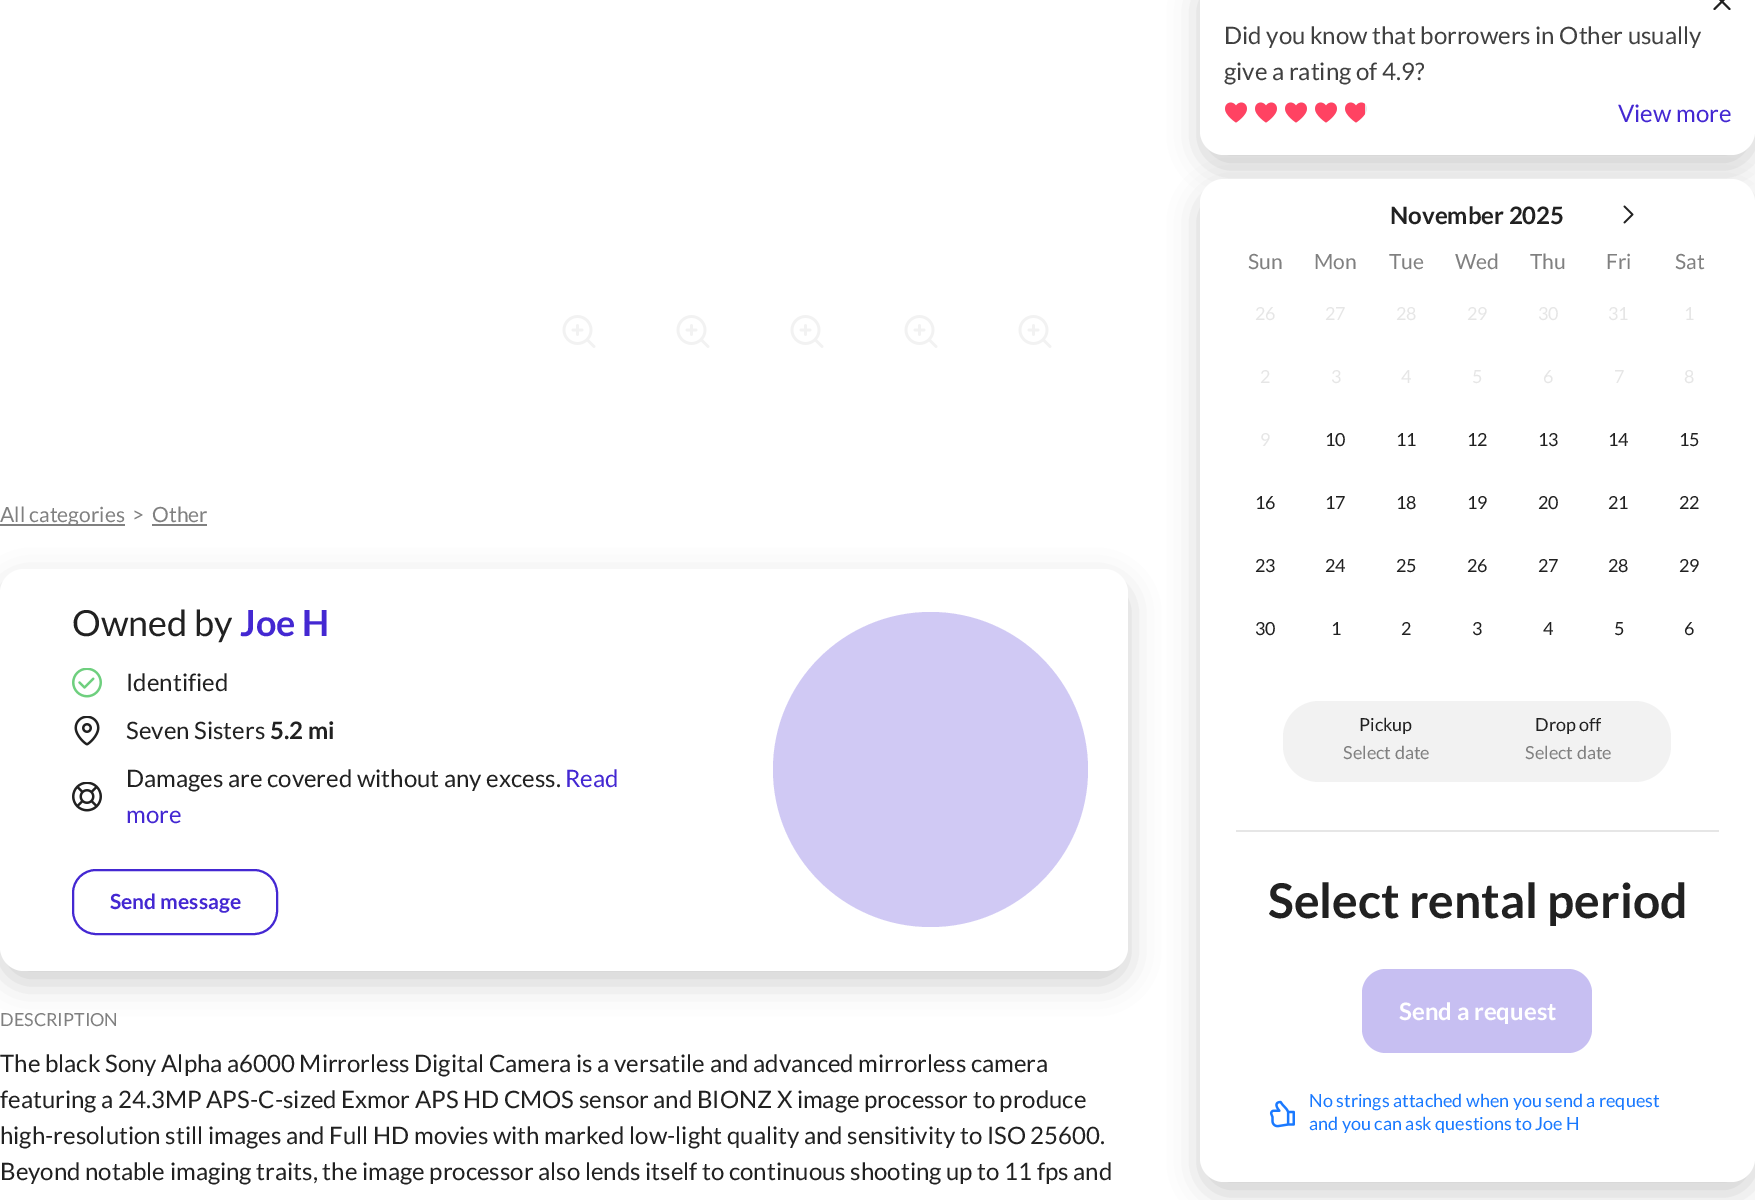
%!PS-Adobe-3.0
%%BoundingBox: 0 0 1755 1200
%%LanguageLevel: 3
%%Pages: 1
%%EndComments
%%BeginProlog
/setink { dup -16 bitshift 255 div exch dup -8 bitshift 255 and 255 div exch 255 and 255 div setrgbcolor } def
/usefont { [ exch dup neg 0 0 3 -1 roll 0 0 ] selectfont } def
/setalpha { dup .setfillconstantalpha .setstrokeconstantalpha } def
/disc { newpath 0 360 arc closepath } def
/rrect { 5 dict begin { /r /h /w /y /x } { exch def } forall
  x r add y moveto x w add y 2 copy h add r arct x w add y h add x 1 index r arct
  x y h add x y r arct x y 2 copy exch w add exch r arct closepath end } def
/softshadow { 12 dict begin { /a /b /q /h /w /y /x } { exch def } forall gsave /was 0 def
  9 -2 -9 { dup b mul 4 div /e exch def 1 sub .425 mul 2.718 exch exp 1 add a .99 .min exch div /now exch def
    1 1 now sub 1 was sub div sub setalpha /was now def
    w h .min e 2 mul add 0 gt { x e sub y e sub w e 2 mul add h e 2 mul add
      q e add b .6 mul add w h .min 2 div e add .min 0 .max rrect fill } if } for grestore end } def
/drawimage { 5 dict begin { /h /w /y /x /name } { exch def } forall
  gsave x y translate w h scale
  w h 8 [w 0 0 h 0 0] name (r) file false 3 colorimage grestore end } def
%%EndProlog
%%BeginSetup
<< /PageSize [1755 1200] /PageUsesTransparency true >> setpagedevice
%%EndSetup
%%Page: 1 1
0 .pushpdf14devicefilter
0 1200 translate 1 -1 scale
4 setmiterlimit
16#FFFFFF setink
0 0 1755 1200 rectfill
(img1.raw) 562 315 34 33 drawimage
(img1.raw) 676 315 34 33 drawimage
(img1.raw) 790 315 34 33 drawimage
(img1.raw) 904 315 34 33 drawimage
(img1.raw) 1018 315 34 33 drawimage
16#808080 setink
0 524 125 2 rectfill
/Lato-Regular 21 usefont
[
    [(All categories) 0 522]
    [(>) 132 522]
    [(Other) 152 522]
] { aload pop moveto show } forall
152 524 55 2 rectfill
16#1A1A1A setink
0 581 1128 402 24 15 0.2 softshadow
16#FFFFFF setink
0 569 1128 402 24 rrect fill
/Lato-Regular 36 usefont
16#212121 setink
72 636 moveto (Owned by) show
/Lato-Bold 36 usefont
16#4428D2 setink
240 636 moveto (Joe H) show
(img2.raw) 72 668 30 30 drawimage
/Lato-Regular 24 usefont
16#212121 setink
126 691 moveto (Identified) show
(img3.raw) 74 716 26 30 drawimage
126 739 moveto (Seven Sisters) show
/Lato-Bold 24 usefont
270 739 moveto (5.2 mi) show
(img4.raw) 72 782 30 30 drawimage
/Lato-Regular 24 usefont
126 787 moveto (Damages are covered without any excess.) show
16#4428D2 setink
565 787 moveto (Read) show
126 823 moveto (more) show
2 setlinewidth
73 870 204 64 23 rrect stroke
/Lato-Bold 21 usefont
110 909 moveto (Send message) show
16#D0C9F4 setink
930.5 769.5 157.5 disc fill
/Lato-Regular 18 usefont
16#808080 setink
0 1026 moveto (DESCRIPTION) show
/Lato-Regular 24 usefont
16#212121 setink
[
    [(The black Sony Alpha a6000 Mirrorless Digital Camera is a versatile and advanced mirrorless camera) 0 1072]
    [(featuring a 24.3MP APS-C-sized Exmor APS HD CMOS sensor and BIONZ X image processor to produce) 0 1108]
    [(high-resolution still images and Full HD movies with marked low-light quality and sensitivity to ISO 25600.) 0 1144]
    [(Beyond notable imaging traits, the image processor also lends itself to continuous shooting up to 11 fps and) 0 1180]
] { aload pop moveto show } forall
16#1A1A1A setink
1200 -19 555 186 24 15 0.2 softshadow
16#FFFFFF setink
1200 -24 555 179 24 rrect fill
16#212121 setink
1.9 setlinewidth
1 setlinecap
1 setlinejoin
1714.5 9 moveto 1722 1.5 lineto 1722 1.5 moveto 1729.5 -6 lineto 1722 1.5 moveto 1729.5 9 lineto 1722 1.5 moveto 1714.5 -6 lineto stroke
16#404040 setink
1224 44 moveto (Did you know that borrowers in Other usually) show
1224 80 moveto (give a rating of 4.9?) show
(img5.raw) 1225 102 22 21 drawimage
(img5.raw) 1255 102 22 21 drawimage
(img5.raw) 1285 102 22 21 drawimage
(img5.raw) 1315 102 22 21 drawimage
(img5.raw) 1345 102 22 21 drawimage
(img6.raw) 1225 102 22 21 drawimage
(img6.raw) 1255 102 22 21 drawimage
(img6.raw) 1285 102 22 21 drawimage
(img6.raw) 1315 102 22 21 drawimage
(img7.raw) 1345 102 20 21 drawimage
16#4428D2 setink
1618 122 moveto (View more) show
16#1A1A1A setink
1200 191 555 1003 24 15 0.2 softshadow
16#FFFFFF setink
1200 179 555 1003 24 rrect fill
/Lato-Bold 24 usefont
16#212121 setink
1390 224 moveto (November 2025) show
(img8.raw) 1623 205 11 19 drawimage
/Lato-Regular 21 usefont
16#808080 setink
[
    [(Sun) 1248 269]
    [(Mon) 1314 269]
    [(Tue) 1389 269]
    [(Wed) 1455 269]
    [(Thu) 1530 269]
    [(Fri) 1606 269]
    [(Sat) 1675 269]
] { aload pop moveto show } forall
/Lato-Regular 18 usefont
16#E6E6E6 setink
[
    [(26) 1255 320]
    [(27) 1325 320]
    [(28) 1396 320]
    [(29) 1467 320]
    [(30) 1538 320]
    [(31) 1608 320]
    [(1) 1684 320]
    [(2) 1260 383]
    [(3) 1331 383]
    [(4) 1401 383]
    [(5) 1472 383]
    [(6) 1543 383]
    [(7) 1614 383]
    [(8) 1684 383]
    [(9) 1260 446]
] { aload pop moveto show } forall
16#212121 setink
[
    [(10) 1325 446]
    [(11) 1396 446]
    [(12) 1467 446]
    [(13) 1538 446]
    [(14) 1608 446]
    [(15) 1679 446]
    [(16) 1255 509]
    [(17) 1325 509]
    [(18) 1396 509]
    [(19) 1467 509]
    [(20) 1538 509]
    [(21) 1608 509]
    [(22) 1679 509]
    [(23) 1255 572]
    [(24) 1325 572]
    [(25) 1396 572]
    [(26) 1467 572]
    [(27) 1538 572]
    [(28) 1608 572]
    [(29) 1679 572]
    [(30) 1255 635]
    [(1) 1331 635]
    [(2) 1401 635]
    [(3) 1472 635]
    [(4) 1543 635]
    [(5) 1614 635]
    [(6) 1684 635]
] { aload pop moveto show } forall
16#F2F2F2 setink
1283 701 388 81 36 rrect fill
16#212121 setink
1359 731 moveto (Pickup) show
16#808080 setink
1343 759 moveto (Select date) show
16#212121 setink
1535 731 moveto (Drop off) show
16#808080 setink
1525 759 moveto (Select date) show
16#E6E6E6 setink
1236 830 483 2 rectfill
/Lato-Bold 48 usefont
16#212121 setink
1268 918 moveto (Select rental period) show
16#C7BFF2 setink
1362 969 230 84 24 rrect fill
/Lato-Bold 24 usefont
16#FFFFFF setink
1399 1020 moveto (Send a request) show
(img9.raw) 1269 1100 26 28 drawimage
/Lato-Regular 18 usefont
16#1979FF setink
1309 1107 moveto (No strings attached when you send a request) show
1309 1130 moveto (and you can ask questions to Joe H) show
.poppdf14devicefilter showpage
%%EOF
